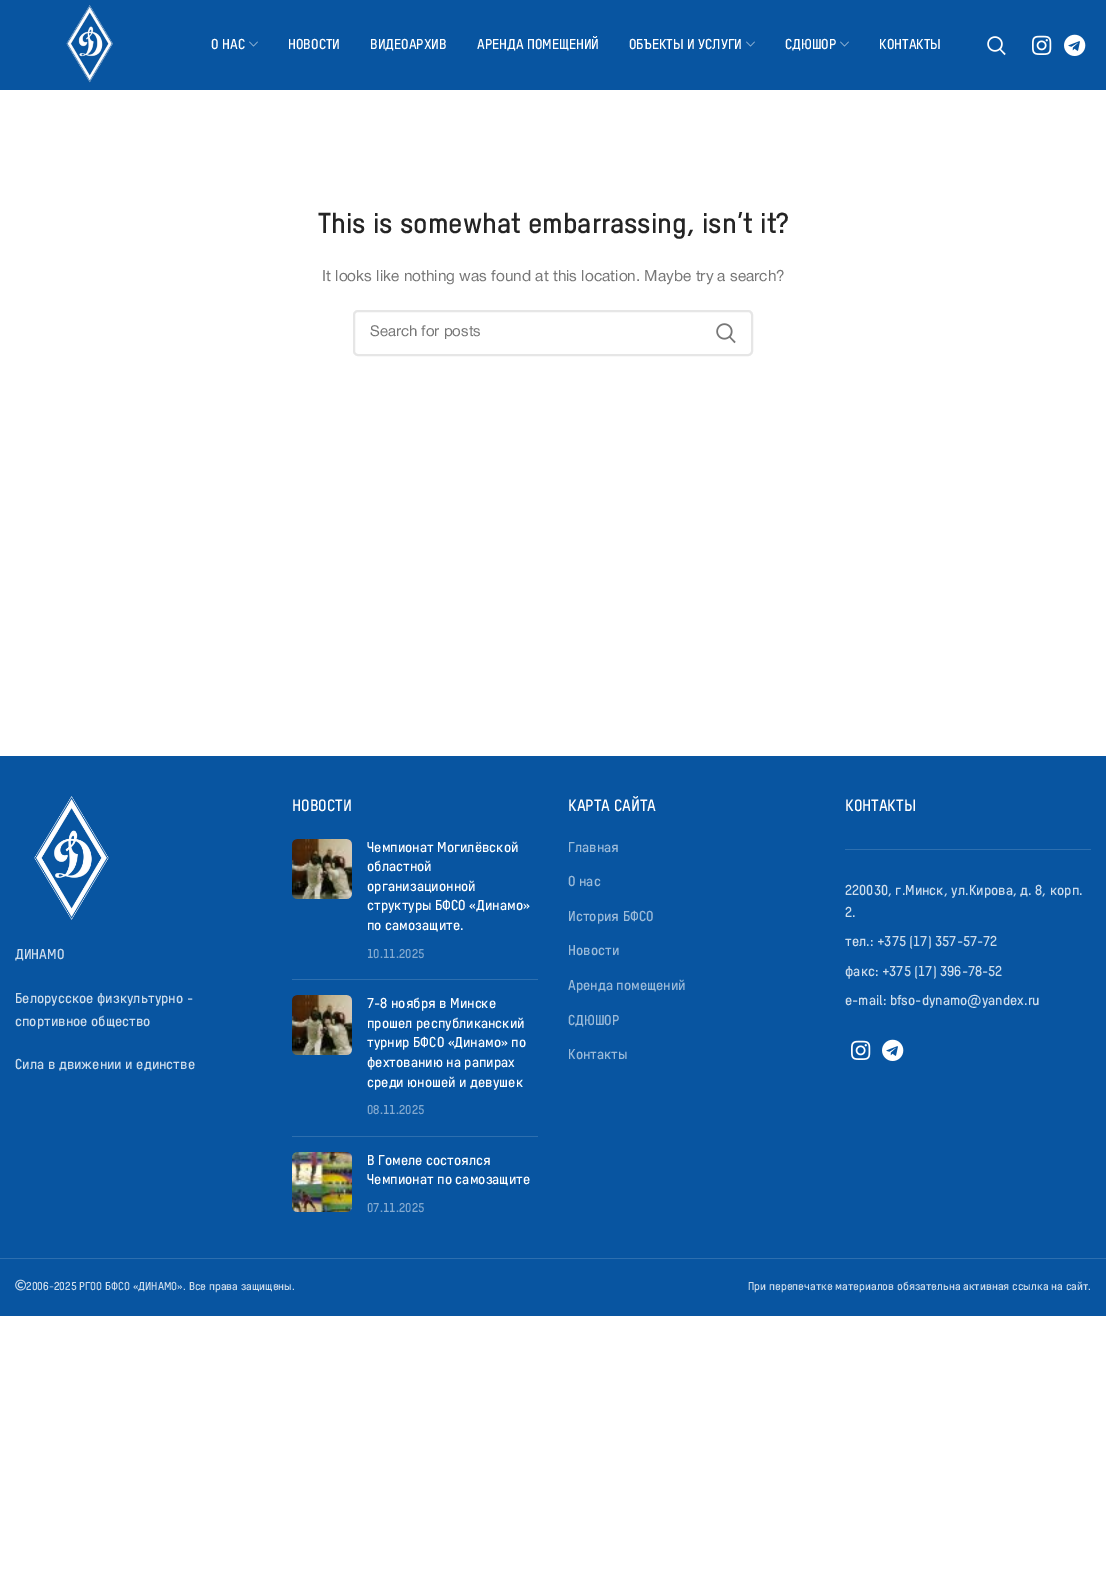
%!PS-Adobe-3.0
%%BoundingBox: 0 0 1106 1592
%%LanguageLevel: 3
%%Pages: 1
%%EndComments
%%BeginProlog
/setink { dup -16 bitshift 255 div exch dup -8 bitshift 255 and 255 div exch 255 and 255 div setrgbcolor } def
/usefont { [ exch dup neg 0 0 3 -1 roll 0 0 ] selectfont } def
/rrect { 5 dict begin { /r /h /w /y /x } { exch def } forall
  x r add y moveto x w add y 2 copy h add r arct x w add y h add x 1 index r arct
  x y h add x y r arct x y 2 copy exch w add exch r arct closepath end } def
/drawimage { 5 dict begin { /h /w /y /x /name } { exch def } forall
  gsave x y translate w h scale
  w h 8 [w 0 0 h 0 0] name (r) file false 3 colorimage grestore end } def
%%EndProlog
%%BeginSetup
<< /PageSize [1106 1592] >> setpagedevice
%%EndSetup
%%Page: 1 1
0 1592 translate 1 -1 scale
4 setmiterlimit
16#FFFFFF setink
0 0 1106 1592 rectfill
16#0855A1 setink
0 0 1106 90 rectfill
(img1.raw) 66 5 47 78 drawimage
/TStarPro-Bold 14 usefont
16#FFFFFF setink
211 49 moveto (О НАС) show
(img2.raw) 249 41 9 6 drawimage
[
    [(НОВОСТИ) 288 49]
    [(ВИДЕОАРХИВ) 370 49]
    [(АРЕНДА ПОМЕЩЕНИЙ) 477 49]
    [(ОБЪЕКТЫ И УСЛУГИ) 629 49]
] { aload pop moveto show } forall
(img2.raw) 746 41 9 6 drawimage
785 49 moveto (СДЮШОР) show
(img2.raw) 840 41 9 6 drawimage
879 49 moveto (КОНТАКТЫ) show
(img3.raw) 987 36 19 20 drawimage
(img4.raw) 1032 35 20 20 drawimage
(img5.raw) 1064 34 22 22 drawimage
/TStarPro-Bold 28 usefont
16#242424 setink
318 233 moveto (This is somewhat embarrassing, isn’t it?) show
/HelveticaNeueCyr-Regular 15.4 usefont
16#777777 setink
322 281 moveto (It looks like nothing was found at this location. Maybe try a search?) show
16#E6E6E6 setink
2 setlinewidth
354 311 398 44 4 rrect stroke
/HelveticaNeueCyr-Regular 15 usefont
16#777777 setink
370 336 moveto (Search for posts) show
(img6.raw) 716 323 20 21 drawimage
16#0855A1 setink
0 756 1106 560 rectfill
(img7.raw) 34 796 75 124 drawimage
/TStarPro-Bold 14 usefont
16#CEDDEC setink
[
    [(ДИНАМО) 15 959]
    [(Белорусское физкультурно -) 15 1003]
    [(спортивное общество) 15 1026]
    [(Сила в движении и единстве) 15 1069]
] { aload pop moveto show } forall
/TStarPro-Bold 16 usefont
16#FFFFFF setink
292 811 moveto (НОВОСТИ) show
16#2D6FAF setink
292 979 246 1 rectfill
(img8.raw) 292 839 60 60 drawimage
/TStarPro-Bold 14 usefont
16#FFFFFF setink
[
    [(Чемпионат Могилёвской) 367 852]
    [(областной) 367 871]
    [(организационной) 367 891]
    [(структуры БФСО «Динамо») 367 910]
    [(по самозащите.) 367 930]
] { aload pop moveto show } forall
/TStarPro-Bold 12.5 usefont
16#84AAD0 setink
367 958 moveto (10.11.2025) show
16#2D6FAF setink
292 1136 246 1 rectfill
(img8.raw) 292 995 60 60 drawimage
/TStarPro-Bold 14 usefont
16#FFFFFF setink
[
    [(7-8 ноября в Минске) 367 1008]
    [(прошел республиканский) 367 1028]
    [(турнир БФСО «Динамо» по) 367 1047]
    [(фехтованию на рапирах) 367 1067]
    [(среди юношей и девушек) 367 1087]
] { aload pop moveto show } forall
/TStarPro-Bold 12.5 usefont
16#84AAD0 setink
367 1114 moveto (08.11.2025) show
(img9.raw) 292 1152 60 60 drawimage
/TStarPro-Bold 14 usefont
16#FFFFFF setink
367 1165 moveto (В Гомеле состоялся) show
367 1184 moveto (Чемпионат по самозащите) show
/TStarPro-Bold 12.5 usefont
16#84AAD0 setink
367 1212 moveto (07.11.2025) show
/TStarPro-Bold 16 usefont
16#FFFFFF setink
568 811 moveto (КАРТА САЙТА) show
/TStarPro-Bold 14 usefont
16#9CBBD9 setink
[
    [(Главная) 568 852]
    [(О нас) 568 886]
    [(История БФСО) 568 921]
    [(Новости) 568 955]
    [(Аренда помещений) 568 990]
    [(СДЮШОР) 568 1025]
    [(Контакты) 568 1059]
] { aload pop moveto show } forall
16#2D6FAF setink
845 849 246 1 rectfill
/TStarPro-Bold 16 usefont
16#FFFFFF setink
845 811 moveto (КОНТАКТЫ) show
/TStarPro-Bold 14 usefont
16#CEDDEC setink
[
    [(220030, г.Минск, ул.Кирова, д. 8, корп.) 845 895]
    [(2.) 845 917]
    [(тел.: +375 \(17\) 357-57-72) 845 946]
    [(факс: +375 \(17\) 396-78-52) 845 976]
    [(e-mail: bfso-dynamo@yandex.ru) 845 1005]
] { aload pop moveto show } forall
(img4.raw) 851 1040 20 20 drawimage
(img5.raw) 882 1039 22 22 drawimage
16#2D6FAF setink
0 1258 1106 1 rectfill
(img10.raw) 15 1279 11 12 drawimage
/TStarPro-Bold 11.2 usefont
16#CEDDEC setink
26 1290 moveto (2006-2025 РГОО БФСО «ДИНАМО». Все права защищены.) show
748 1290 moveto (При перепечатке материалов обязательна активная ссылка на сайт.) show
showpage
%%EOF
